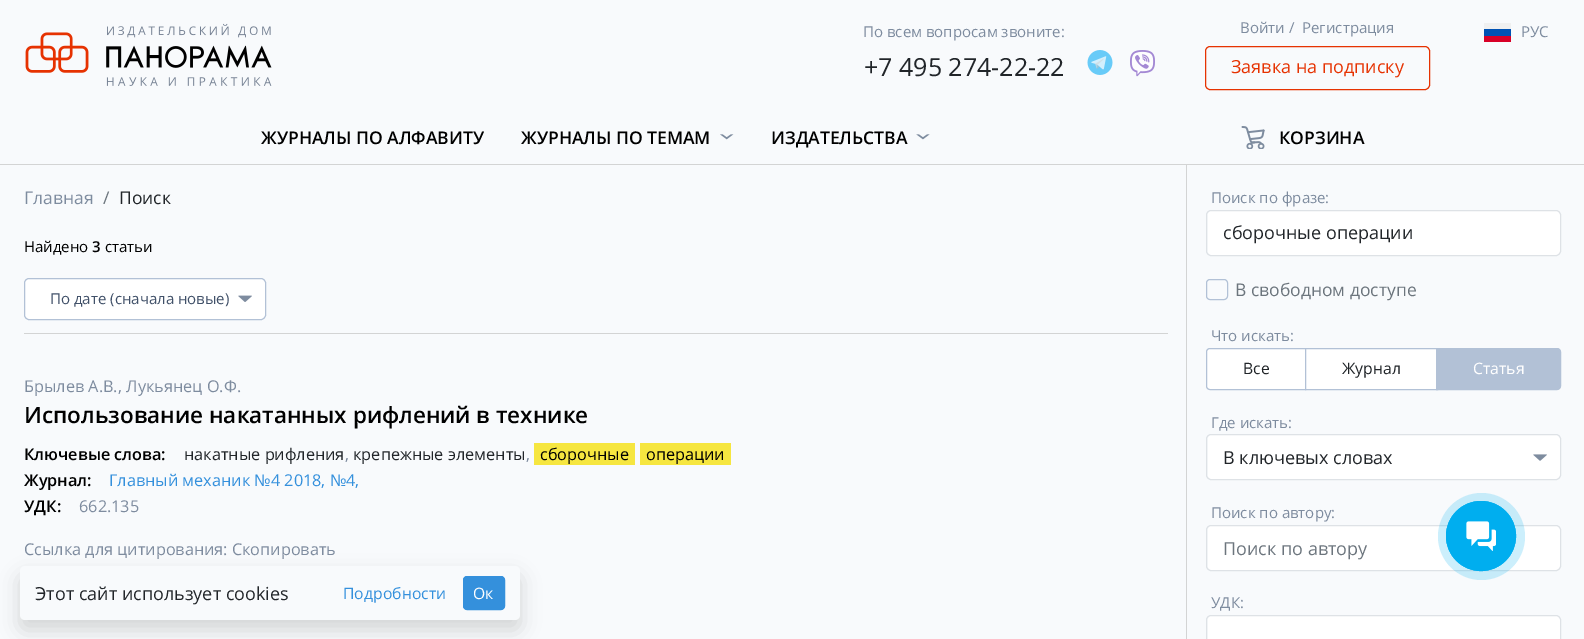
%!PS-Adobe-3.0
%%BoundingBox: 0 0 1584 639
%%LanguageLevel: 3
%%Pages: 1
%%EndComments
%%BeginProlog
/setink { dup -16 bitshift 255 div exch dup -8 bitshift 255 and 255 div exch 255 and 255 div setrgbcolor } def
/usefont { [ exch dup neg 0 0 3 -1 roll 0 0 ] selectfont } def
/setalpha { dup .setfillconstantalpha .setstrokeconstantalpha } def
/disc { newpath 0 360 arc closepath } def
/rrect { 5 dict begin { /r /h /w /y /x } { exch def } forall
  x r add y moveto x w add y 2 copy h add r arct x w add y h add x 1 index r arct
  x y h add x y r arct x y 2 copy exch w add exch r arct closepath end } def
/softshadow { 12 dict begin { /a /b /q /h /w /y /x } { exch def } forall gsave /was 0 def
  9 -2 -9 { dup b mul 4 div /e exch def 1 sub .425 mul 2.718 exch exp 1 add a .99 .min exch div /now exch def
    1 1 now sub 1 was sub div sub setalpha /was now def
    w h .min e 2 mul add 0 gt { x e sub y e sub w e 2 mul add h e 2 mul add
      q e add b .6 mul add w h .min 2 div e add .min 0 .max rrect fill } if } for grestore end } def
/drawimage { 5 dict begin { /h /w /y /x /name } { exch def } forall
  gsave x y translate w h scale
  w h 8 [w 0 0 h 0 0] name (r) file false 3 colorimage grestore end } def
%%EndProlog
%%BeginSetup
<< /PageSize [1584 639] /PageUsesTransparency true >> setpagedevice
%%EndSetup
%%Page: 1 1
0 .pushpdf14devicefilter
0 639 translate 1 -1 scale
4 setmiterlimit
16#F8FAFC setink
0 0 1584 639 rectfill
16#D3D4D4 setink
0 164 1584 1 rectfill
(img1.raw) 25 23 247 63 drawimage
/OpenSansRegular-Regular 15 usefont
16#7E8C9F setink
863 37 moveto (По всем вопросам звоните:) show
/OpenSansRegular-Regular 25 usefont
16#212529 setink
864 76 moveto (+7 495 274-22-22) show
(img2.raw) 1087 50 26 25 drawimage
(img3.raw) 1130 50 25 27 drawimage
/OpenSansRegular-Regular 15 usefont
16#7E8C9F setink
1240 33 moveto (Войти /) show
1302 33 moveto (Регистрация) show
16#E63201 setink
1205.5 46.5 224 43 4.5 rrect stroke
/OpenSansRegular-Regular 18 usefont
1231 73 moveto (Заявка на подписку) show
[
    [1484 29 27 7 16#0052B4]
    [1484 23 27 6 16#F0F0F0]
    [1484 36 27 6 16#D80027]
] { aload pop setink rectfill } forall
/OpenSansRegular-Regular 15 usefont
16#7E8C9F setink
1521 37 moveto (РУС) show
/OpenSans-SemiBold 17.5 usefont
16#000000 setink
261 144 moveto (ЖУРНАЛЫ ПО АЛФАВИТУ) show
521 144 moveto (ЖУРНАЛЫ ПО ТЕМАМ) show
(img4.raw) 720 134 14 6 drawimage
771 144 moveto (ИЗДАТЕЛЬСТВА) show
(img5.raw) 916 134 14 6 drawimage
(img6.raw) 1241 126 24 23 drawimage
1279 144 moveto (КОРЗИНА) show
/OpenSansRegular-Regular 17.5 usefont
16#7E8C9F setink
24 204 moveto (Главная) show
16#6C757D setink
103 204 moveto (/) show
16#212529 setink
119 204 moveto (Поиск) show
16#D3D4D4 setink
24 333 1144 1 rectfill
/OpenSansRegular-Regular 15 usefont
16#000000 setink
24 252 moveto (Найдено) show
/OpenSans-SemiBold 15 usefont
92 252 moveto (3) show
/OpenSansRegular-Regular 15 usefont
105 252 moveto (статьи) show
16#FFFFFF setink
24 278 242 42 5 rrect fill
(img7.raw) 238 295 14 7 drawimage
16#B2C1D6 setink
24.5 278.5 241 41 4.5 rrect stroke
16#415169 setink
50 304 moveto (По дате \(сначала новые\)) show
/OpenSansRegular-Regular 16.25 usefont
16#7E8C9F setink
24 392 moveto (Брылев А.В.) show
118 392 moveto (, Лукьянец О.Ф.) show
/OpenSans-SemiBold 22.5 usefont
16#000000 setink
24 423 moveto (Использование накатанных рифлений в технике) show
/OpenSans-SemiBold 16.25 usefont
24 460 moveto (Ключевые слова:) show
/OpenSansRegular-Regular 16.25 usefont
16#212529 setink
184 460 moveto (накатные рифления) show
16#7E8C9F setink
345 460 moveto (,) show
16#212529 setink
353 460 moveto (крепежные элементы) show
16#7E8C9F setink
526 460 moveto (,) show
16#F6E640 setink
534 443 101 22 rectfill
16#000000 setink
540 460 moveto (сборочные) show
16#F6E640 setink
640 443 91 22 rectfill
16#000000 setink
646 460 moveto (операции) show
/OpenSans-SemiBold 16.25 usefont
24 486 moveto (Журнал:) show
/OpenSansRegular-Regular 16.25 usefont
16#3490DC setink
109 486 moveto (Главный механик №4 2018, №4,) show
/OpenSans-SemiBold 16.25 usefont
16#000000 setink
24 512 moveto (УДК:) show
/OpenSansRegular-Regular 16.25 usefont
16#7E8C9F setink
79 512 moveto (662.135) show
24 555 moveto (Ссылка для цитирования: Скопировать) show
16#D3D4D4 setink
1186 165 1 474 rectfill
/OpenSansRegular-Regular 15 usefont
16#7E8C9F setink
1211 203 moveto (Поиск по фразе:) show
16#FFFFFF setink
1208 211 352 44 4 rrect fill
16#DEE2E6 setink
1206.5 210.5 354 45 4.5 rrect stroke
/OpenSansRegular-Regular 18 usefont
16#212529 setink
1223 239 moveto (сборочные операции) show
16#B2C1D6 setink
1206.5 279.5 21 20 3.5 rrect stroke
/OpenSansRegular-Regular 17.5 usefont
16#6C757D setink
1235 296 moveto (В свободном доступе) show
/OpenSansRegular-Regular 15 usefont
16#7E8C9F setink
1211 341 moveto (Что искать:) show
16#FFFFFF setink
1210 348.5 moveto 1305.5 348.5 lineto 1305.5 389.5 lineto 1210 389.5 lineto 1208 389.5 1206.5 388 1206.5 386 curveto 1206.5 352 lineto 1206.5 350 1208 348.5 1210 348.5 curveto closepath gsave fill grestore
16#B2C1D6 setink
stroke
/OpenSansRegular-Regular 15.75 usefont
16#212529 setink
1243 374 moveto (Все) show
16#FFFFFF setink
1306 349 130 40 rectfill
16#B2C1D6 setink
1305.5 348.5 132 41 rectstroke
16#212529 setink
1342 374 moveto (Журнал) show
16#B2C1D6 setink
1436.5 348.5 moveto 1557 348.5 lineto 1559 348.5 1560.5 350 1560.5 352 curveto 1560.5 386 lineto 1560.5 388 1559 389.5 1557 389.5 curveto 1436.5 389.5 lineto closepath gsave fill grestore
stroke
16#FFFFFF setink
1473 374 moveto (Статья) show
/OpenSansRegular-Regular 15 usefont
16#7E8C9F setink
1211 428 moveto (Где искать:) show
16#FFFFFF setink
1208 435 352 44 4 rrect fill
(img8.raw) 1533 454 14 7 drawimage
16#DEE2E6 setink
1206.5 434.5 354 45 4.5 rrect stroke
/OpenSansRegular-Regular 18 usefont
16#212529 setink
1223 464 moveto (В ключевых словах) show
/OpenSansRegular-Regular 15 usefont
16#7E8C9F setink
1211 518 moveto (Поиск по автору:) show
16#FFFFFF setink
1208 526 352 44 4 rrect fill
16#DEE2E6 setink
1206.5 525.5 354 45 4.5 rrect stroke
/OpenSansRegular-Regular 18 usefont
16#6C757D setink
1223 555 moveto (Поиск по автору) show
/OpenSansRegular-Regular 15 usefont
16#7E8C9F setink
1211 608 moveto (УДК:) show
16#FFFFFF setink
1208 616 352 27 4 rrect fill
16#DEE2E6 setink
1206.5 615.5 354 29 4.5 rrect stroke
0.2 setalpha
16#00AEEF setink
1481.5 536.5 43.5 disc fill
1 setalpha
1481 536 34.5 disc stroke
1481 536 35 disc fill
(img9.raw) 1466 521 30 30 drawimage
16#000000 setink
20 576 500 54 5 10 0.15 softshadow
16#F8FAFC setink
20 566 500 54 5 rrect fill
/OpenSansRegular-Regular 18 usefont
16#212529 setink
35 600 moveto (Этот сайт использует cookies) show
/OpenSansRegular-Regular 15.75 usefont
16#3490DC setink
343 599 moveto (Подробности) show
463.5 576.5 41 33 3.5 rrect gsave fill grestore
stroke
16#FFFFFF setink
473 599 moveto (Ок) show
.poppdf14devicefilter showpage
%%EOF
